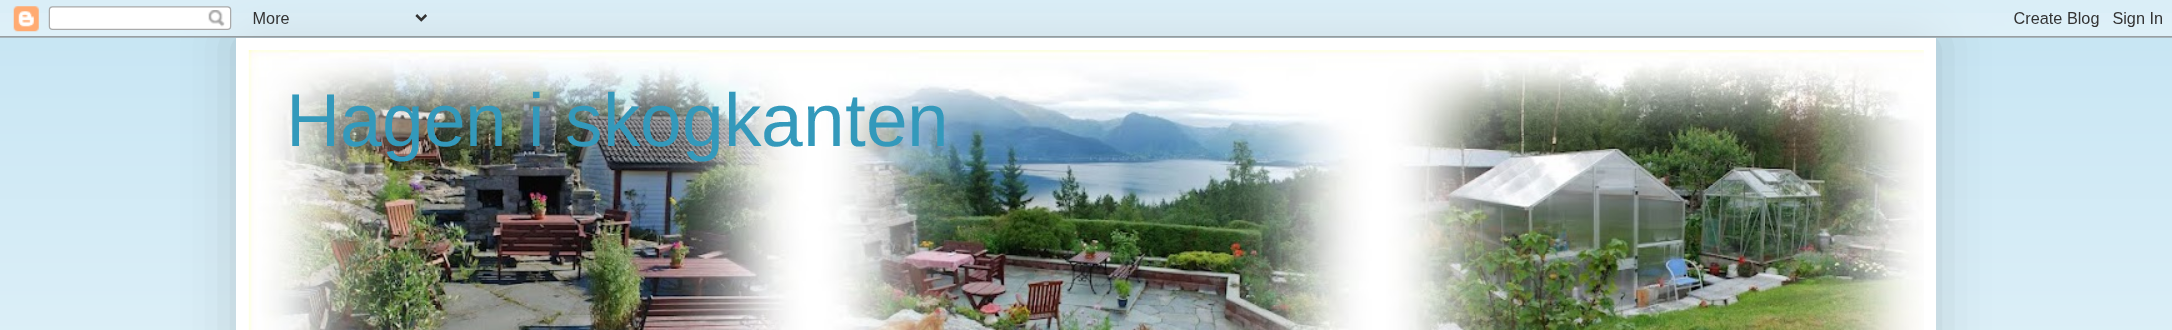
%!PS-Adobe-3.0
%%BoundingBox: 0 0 2172 330
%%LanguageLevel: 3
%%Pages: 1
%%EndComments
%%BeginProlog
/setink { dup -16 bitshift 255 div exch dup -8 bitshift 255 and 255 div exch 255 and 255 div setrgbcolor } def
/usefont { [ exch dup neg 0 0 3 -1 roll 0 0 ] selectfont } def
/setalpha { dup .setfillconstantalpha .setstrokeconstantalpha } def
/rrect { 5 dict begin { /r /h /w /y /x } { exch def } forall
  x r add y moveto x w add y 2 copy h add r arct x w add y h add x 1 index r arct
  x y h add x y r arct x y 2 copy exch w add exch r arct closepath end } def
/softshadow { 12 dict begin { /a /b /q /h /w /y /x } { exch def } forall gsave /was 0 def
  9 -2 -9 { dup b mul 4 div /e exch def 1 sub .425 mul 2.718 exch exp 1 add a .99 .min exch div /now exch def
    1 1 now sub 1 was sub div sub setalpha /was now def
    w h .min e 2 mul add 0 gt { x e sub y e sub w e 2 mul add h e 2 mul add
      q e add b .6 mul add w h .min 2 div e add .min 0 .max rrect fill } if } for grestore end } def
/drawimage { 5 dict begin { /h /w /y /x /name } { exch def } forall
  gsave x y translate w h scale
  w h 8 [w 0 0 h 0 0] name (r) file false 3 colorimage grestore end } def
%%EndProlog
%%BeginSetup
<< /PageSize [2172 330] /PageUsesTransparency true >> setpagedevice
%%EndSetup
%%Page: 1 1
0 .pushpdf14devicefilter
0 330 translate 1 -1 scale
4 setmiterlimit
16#C2E3F2 setink
0 0 2172 330 rectfill
(img2.raw) 0 13 2172 317 drawimage
16#000000 setink
236 38 1700 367 0 25 0.15 softshadow
(img1.raw) 0 0 2172 38 drawimage
16#FFFFFF setink
236 38 1700 292 rectfill
(img3.raw) 248 50 1676 280 drawimage
/LiberationSans-Regular 75 usefont
16#3399BB setink
286 146 moveto (Hagen i skogkanten) show
.poppdf14devicefilter showpage
%%EOF
